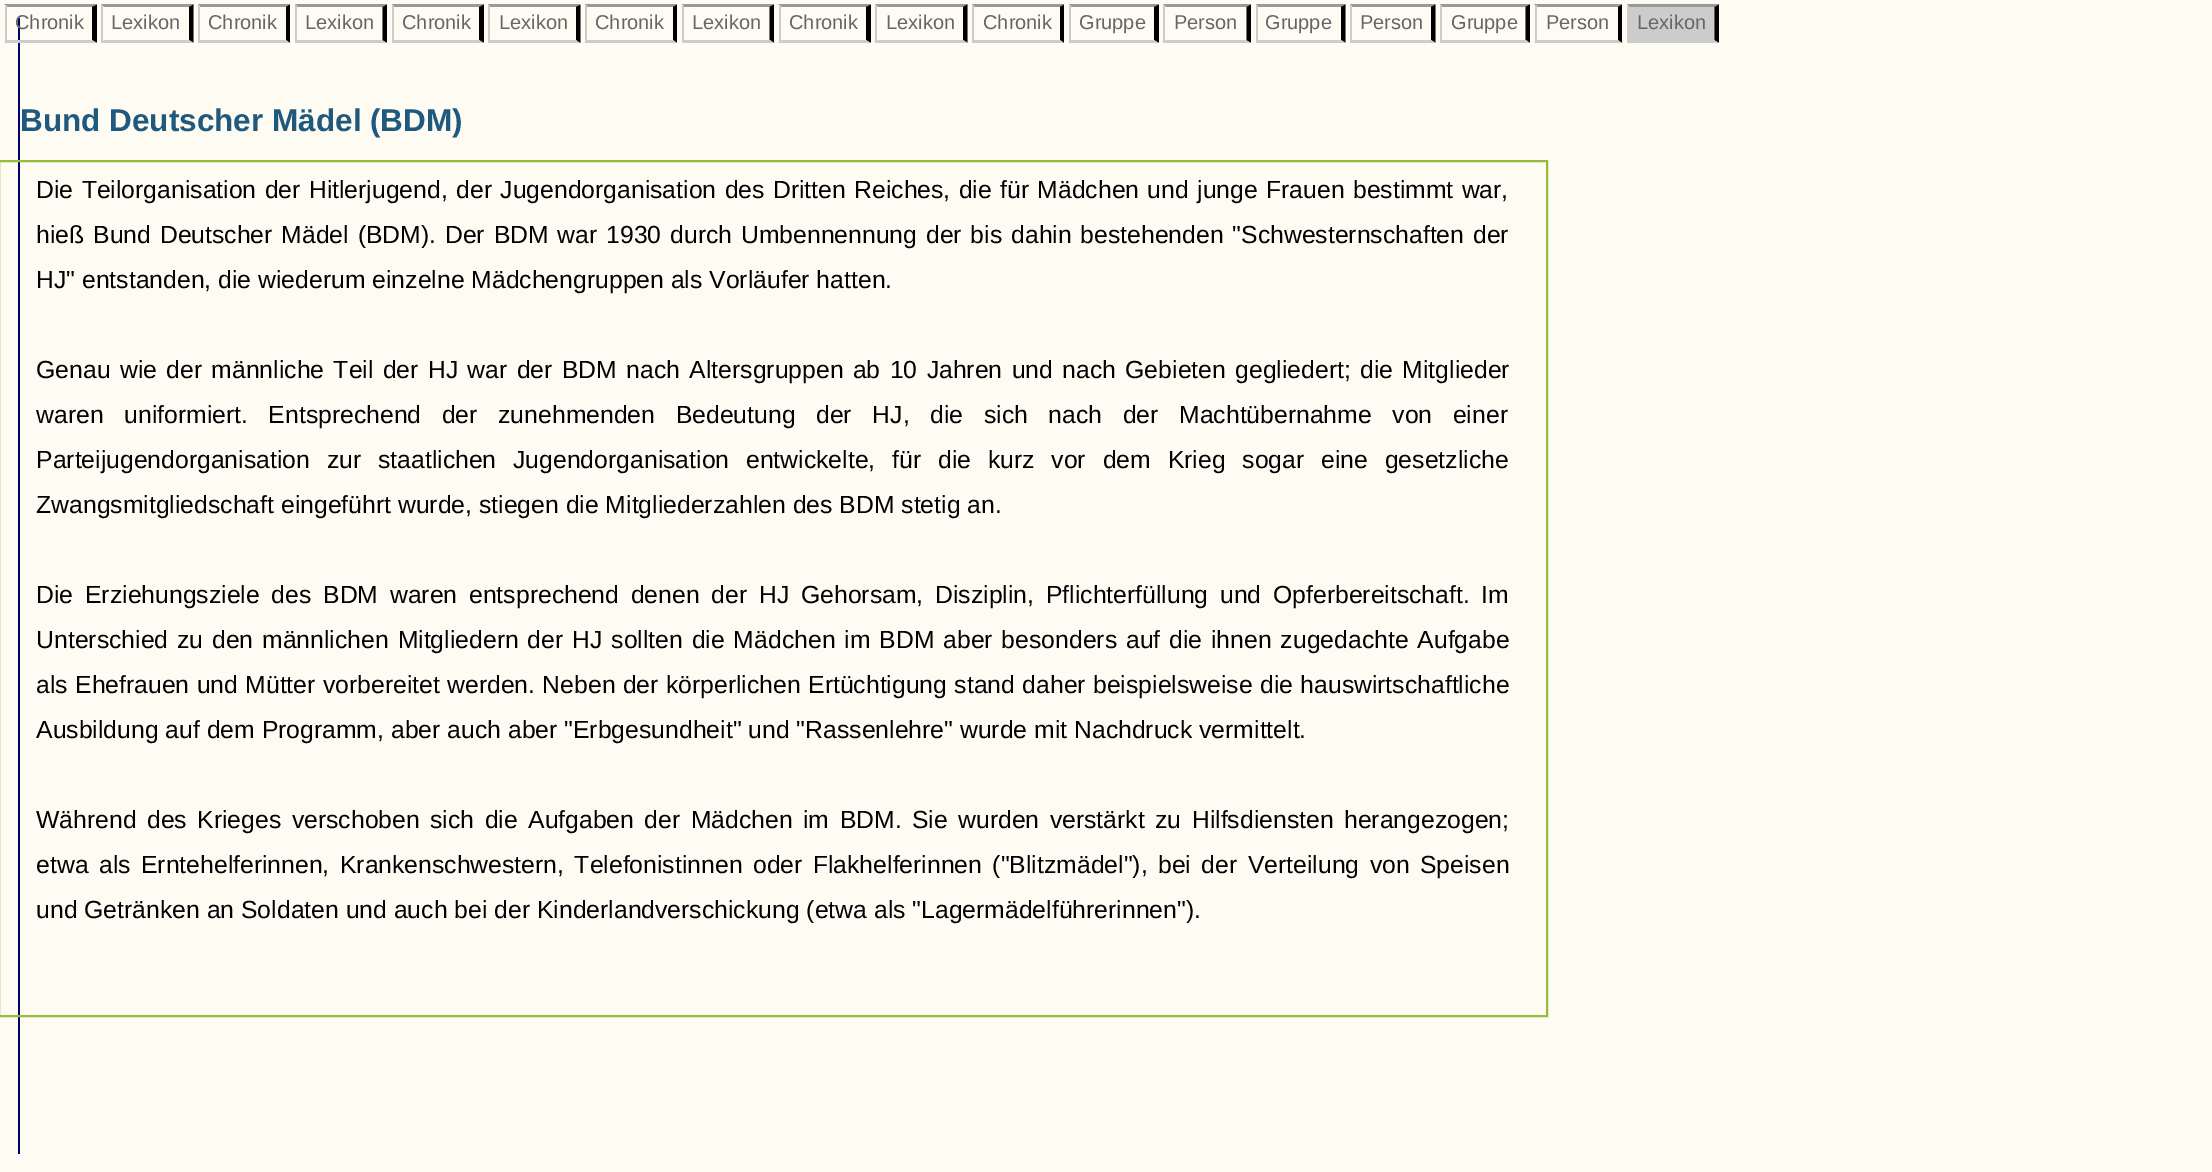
%!PS-Adobe-3.0
%%BoundingBox: 0 0 2212 1172
%%LanguageLevel: 3
%%Pages: 1
%%EndComments
%%BeginProlog
/setink { dup -16 bitshift 255 div exch dup -8 bitshift 255 and 255 div exch 255 and 255 div setrgbcolor } def
/usefont { [ exch dup neg 0 0 3 -1 roll 0 0 ] selectfont } def
%%EndProlog
%%BeginSetup
<< /PageSize [2212 1172] >> setpagedevice
%%EndSetup
%%Page: 1 1
0 1172 translate 1 -1 scale
4 setmiterlimit
16#FEFBF3 setink
0 0 2212 1172 rectfill
16#000066 setink
18 18 2 1136 rectfill
16#999999 setink
4 4 moveto 97 4 lineto 92 7 lineto 7 7 lineto closepath fill
16#000000 setink
97 4.5 moveto 97 43 lineto 92 40.5 lineto 92 7 lineto closepath fill
16#CCCCCC setink
97 43 moveto 4 43 lineto 7 40 lineto 92 40 lineto closepath fill
5 5 2 38 rectfill
/LiberationSans-Regular 20 usefont
16#666666 setink
15 29 moveto (Chronik) show
16#999999 setink
101 4 moveto 194 4 lineto 189 7 lineto 104 7 lineto closepath fill
16#000000 setink
193.5 4.5 moveto 193.5 43 lineto 189 40.5 lineto 189 7 lineto closepath fill
16#CCCCCC setink
194 43 moveto 101 43 lineto 104 40 lineto 189 40 lineto closepath fill
101 5 2 38 rectfill
16#666666 setink
111 29 moveto (Lexikon) show
16#999999 setink
198 4 moveto 290 4 lineto 286 7 lineto 200 7 lineto closepath fill
16#000000 setink
290 4.5 moveto 290 43 lineto 286 40.5 lineto 286 7 lineto closepath fill
16#CCCCCC setink
290 43 moveto 198 43 lineto 200 40 lineto 286 40 lineto closepath fill
198 5 2 38 rectfill
16#666666 setink
208 29 moveto (Chronik) show
16#999999 setink
295 4 moveto 387 4 lineto 382 7 lineto 297 7 lineto closepath fill
16#000000 setink
387 4.5 moveto 387 43 lineto 382.5 40.5 lineto 382.5 7 lineto closepath fill
16#CCCCCC setink
387 43 moveto 295 43 lineto 297 40 lineto 382 40 lineto closepath fill
295 5 2 38 rectfill
16#666666 setink
305 29 moveto (Lexikon) show
16#999999 setink
392 4 moveto 484 4 lineto 479 7 lineto 394 7 lineto closepath fill
16#000000 setink
484 4.5 moveto 484 43 lineto 479 40.5 lineto 479 7 lineto closepath fill
16#CCCCCC setink
484 43 moveto 392 43 lineto 394 40 lineto 479 40 lineto closepath fill
392 5 2 38 rectfill
16#666666 setink
402 29 moveto (Chronik) show
16#999999 setink
488 4 moveto 580 4 lineto 576 7 lineto 490 7 lineto closepath fill
16#000000 setink
580.5 4.5 moveto 580.5 43 lineto 576 40.5 lineto 576 7 lineto closepath fill
16#CCCCCC setink
580 43 moveto 488 43 lineto 490 40 lineto 576 40 lineto closepath fill
488 5 2 38 rectfill
16#666666 setink
499 29 moveto (Lexikon) show
16#999999 setink
585 4 moveto 677 4 lineto 673 7 lineto 587 7 lineto closepath fill
16#000000 setink
677 4.5 moveto 677 43 lineto 673 40.5 lineto 673 7 lineto closepath fill
16#CCCCCC setink
677 43 moveto 585 43 lineto 587 40 lineto 673 40 lineto closepath fill
585 5 2 38 rectfill
16#666666 setink
595 29 moveto (Chronik) show
16#999999 setink
682 4 moveto 774 4 lineto 770 7 lineto 684 7 lineto closepath fill
16#000000 setink
774 4.5 moveto 774 43 lineto 769.5 40.5 lineto 769.5 7 lineto closepath fill
16#CCCCCC setink
774 43 moveto 682 43 lineto 684 40 lineto 770 40 lineto closepath fill
682 5 2 38 rectfill
16#666666 setink
692 29 moveto (Lexikon) show
16#999999 setink
778 4 moveto 871 4 lineto 866 7 lineto 781 7 lineto closepath fill
16#000000 setink
871 4.5 moveto 871 43 lineto 866 40.5 lineto 866 7 lineto closepath fill
16#CCCCCC setink
871 43 moveto 778 43 lineto 781 40 lineto 866 40 lineto closepath fill
779 5 2 38 rectfill
16#666666 setink
789 29 moveto (Chronik) show
16#999999 setink
875 4 moveto 968 4 lineto 963 7 lineto 878 7 lineto closepath fill
16#000000 setink
967.5 4.5 moveto 967.5 43 lineto 963 40.5 lineto 963 7 lineto closepath fill
16#CCCCCC setink
968 43 moveto 875 43 lineto 878 40 lineto 963 40 lineto closepath fill
875 5 2 38 rectfill
16#666666 setink
886 29 moveto (Lexikon) show
16#999999 setink
972 4 moveto 1064 4 lineto 1060 7 lineto 974 7 lineto closepath fill
16#000000 setink
1064 4.5 moveto 1064 43 lineto 1060 40.5 lineto 1060 7 lineto closepath fill
16#CCCCCC setink
1064 43 moveto 972 43 lineto 974 40 lineto 1060 40 lineto closepath fill
972 5 2 38 rectfill
16#666666 setink
983 29 moveto (Chronik) show
16#999999 setink
1069 4 moveto 1159 4 lineto 1154 7 lineto 1071 7 lineto closepath fill
16#000000 setink
1159 4.5 moveto 1159 43 lineto 1154 40.5 lineto 1154 7 lineto closepath fill
16#CCCCCC setink
1159 43 moveto 1069 43 lineto 1071 40 lineto 1154 40 lineto closepath fill
1069 5 2 38 rectfill
16#666666 setink
1079 29 moveto (Gruppe) show
16#999999 setink
1163 4 moveto 1251 4 lineto 1246 7 lineto 1166 7 lineto closepath fill
16#000000 setink
1251 4.5 moveto 1251 43 lineto 1246.5 40.5 lineto 1246.5 7 lineto closepath fill
16#CCCCCC setink
1251 43 moveto 1163 43 lineto 1166 40 lineto 1246 40 lineto closepath fill
1163 5 2 38 rectfill
16#666666 setink
1174 29 moveto (Person) show
16#999999 setink
1256 4 moveto 1346 4 lineto 1341 7 lineto 1258 7 lineto closepath fill
16#000000 setink
1345.5 4.5 moveto 1345.5 43 lineto 1341 40.5 lineto 1341 7 lineto closepath fill
16#CCCCCC setink
1346 43 moveto 1256 43 lineto 1258 40 lineto 1341 40 lineto closepath fill
1256 5 2 38 rectfill
16#666666 setink
1265 29 moveto (Gruppe) show
16#999999 setink
1350 4 moveto 1436 4 lineto 1431 7 lineto 1352 7 lineto closepath fill
16#000000 setink
1435.5 4.5 moveto 1435.5 43 lineto 1431 40.5 lineto 1431 7 lineto closepath fill
16#CCCCCC setink
1436 43 moveto 1350 43 lineto 1352 40 lineto 1431 40 lineto closepath fill
1350 5 2 38 rectfill
16#666666 setink
1360 29 moveto (Person) show
16#999999 setink
1440 4 moveto 1530 4 lineto 1526 7 lineto 1442 7 lineto closepath fill
16#000000 setink
1530 4.5 moveto 1530 43 lineto 1525.5 40.5 lineto 1525.5 7 lineto closepath fill
16#CCCCCC setink
1530 43 moveto 1440 43 lineto 1442 40 lineto 1526 40 lineto closepath fill
1440 5 2 38 rectfill
16#666666 setink
1451 29 moveto (Gruppe) show
16#999999 setink
1534 4 moveto 1622 4 lineto 1618 7 lineto 1537 7 lineto closepath fill
16#000000 setink
1622 4.5 moveto 1622 43 lineto 1618 40.5 lineto 1618 7 lineto closepath fill
16#CCCCCC setink
1622 43 moveto 1534 43 lineto 1537 40 lineto 1618 40 lineto closepath fill
1535 5 2 38 rectfill
16#666666 setink
1546 29 moveto (Person) show
16#CCCCCC setink
1629 7 86 34 rectfill
16#999999 setink
1627 4 moveto 1719 4 lineto 1714 7 lineto 1629 7 lineto closepath fill
16#000000 setink
1719 4.5 moveto 1719 43 lineto 1714.5 40.5 lineto 1714.5 7 lineto closepath fill
16#CCCCCC setink
1719 43 moveto 1627 43 lineto 1629 40 lineto 1714 40 lineto closepath fill
1627 5 2 38 rectfill
16#666666 setink
1637 29 moveto (Lexikon) show
/LiberationSans-Bold 31.5 usefont
16#1F5A7E setink
20 131 moveto (Bund Deutscher Mädel \(BDM\)) show
16#96BC3D setink
2 setlinewidth
-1 161 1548 855 rectstroke
/LiberationSans-Regular 24.75 usefont
16#000000 setink
36 198 moveto 1.5 0 32 (Die Teilorganisation der Hitlerjugend, der Jugendorganisation des Dritten Reiches, die für Mädchen und junge Frauen bestimmt war,) widthshow
36 243 moveto 2 0 32 (hieß Bund Deutscher Mädel \(BDM\). Der BDM war 1930 durch Umbennennung der bis dahin bestehenden "Schwesternschaften der) widthshow
36 288 moveto (HJ" entstanden, die wiederum einzelne Mädchengruppen als Vorläufer hatten.) show
36 378 moveto 2.5 0 32 (Genau wie der männliche Teil der HJ war der BDM nach Altersgruppen ab 10 Jahren und nach Gebieten gegliedert; die Mitglieder) widthshow
36 423 moveto 13.75 0 32 (waren uniformiert. Entsprechend der zunehmenden Bedeutung der HJ, die sich nach der Machtübernahme von einer) widthshow
36 468 moveto 10 0 32 (Parteijugendorganisation zur staatlichen Jugendorganisation entwickelte, für die kurz vor dem Krieg sogar eine gesetzliche) widthshow
36 513 moveto (Zwangsmitgliedschaft eingeführt wurde, stiegen die Mitgliederzahlen des BDM stetig an.) show
36 603 moveto 4.9 0 32 (Die Erziehungsziele des BDM waren entsprechend denen der HJ Gehorsam, Disziplin, Pflichterfüllung und Opferbereitschaft. Im) widthshow
36 648 moveto 2 0 32 (Unterschied zu den männlichen Mitgliedern der HJ sollten die Mädchen im BDM aber besonders auf die ihnen zugedachte Aufgabe) widthshow
36 693 moveto 0.5 0 32 (als Ehefrauen und Mütter vorbereitet werden. Neben der körperlichen Ertüchtigung stand daher beispielsweise die hauswirtschaftliche) widthshow
36 738 moveto (Ausbildung auf dem Programm, aber auch aber "Erbgesundheit" und "Rassenlehre" wurde mit Nachdruck vermittelt.) show
36 828 moveto 3.6 0 32 (Während des Krieges verschoben sich die Aufgaben der Mädchen im BDM. Sie wurden verstärkt zu Hilfsdiensten herangezogen;) widthshow
36 873 moveto 3.6 0 32 (etwa als Erntehelferinnen, Krankenschwestern, Telefonistinnen oder Flakhelferinnen \("Blitzmädel"\), bei der Verteilung von Speisen) widthshow
36 918 moveto (und Getränken an Soldaten und auch bei der Kinderlandverschickung \(etwa als "Lagermädelführerinnen"\).) show
showpage
%%EOF
